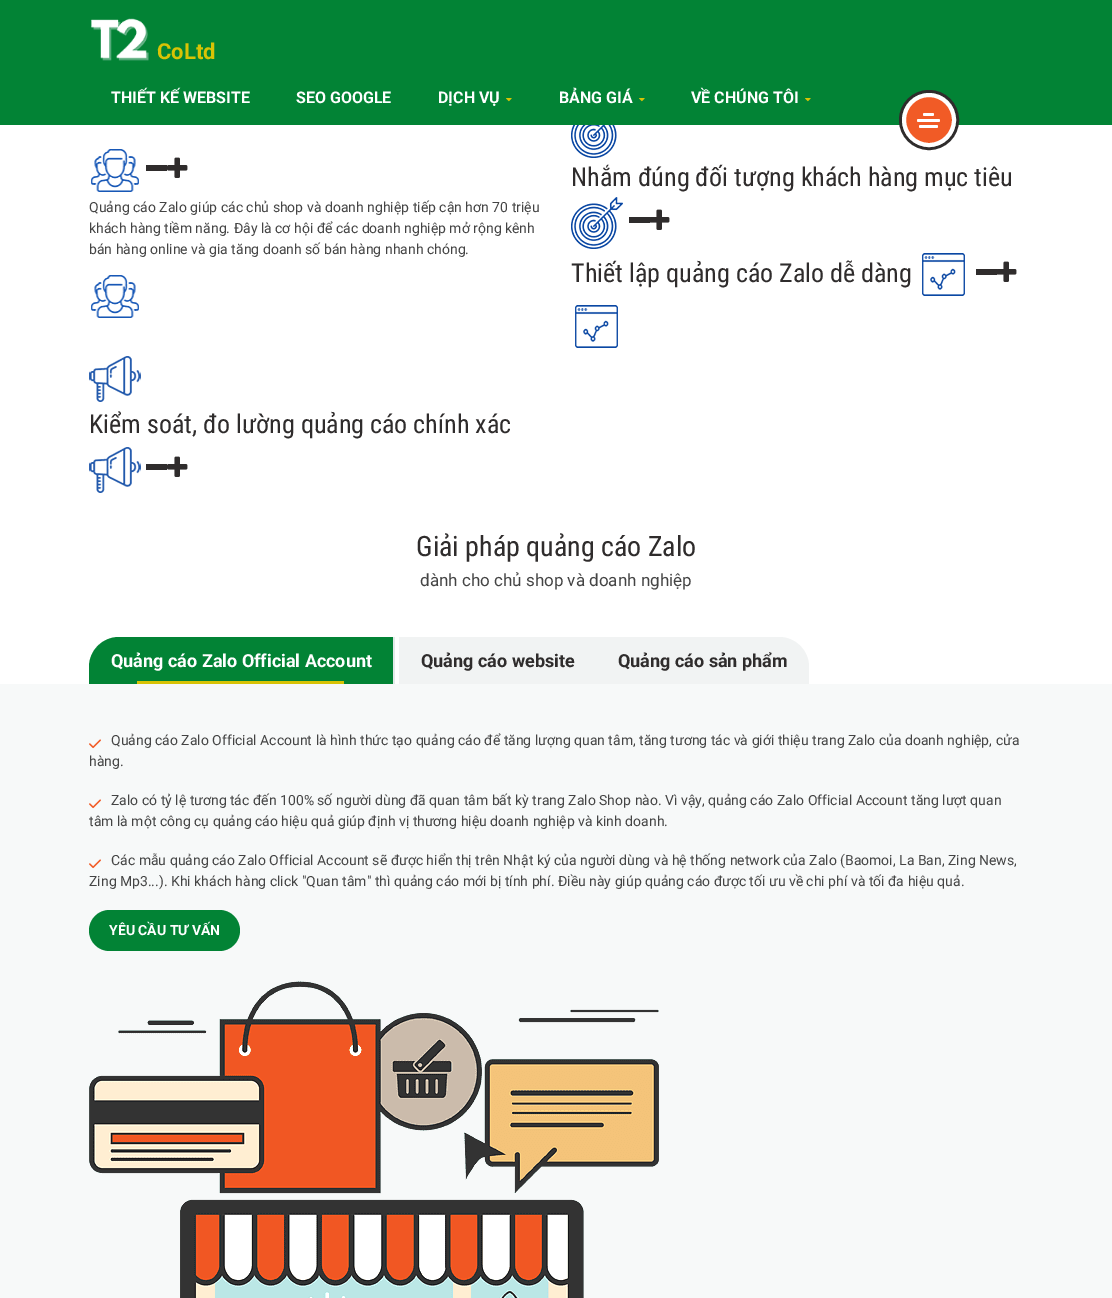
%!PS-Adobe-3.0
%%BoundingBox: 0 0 1112 1298
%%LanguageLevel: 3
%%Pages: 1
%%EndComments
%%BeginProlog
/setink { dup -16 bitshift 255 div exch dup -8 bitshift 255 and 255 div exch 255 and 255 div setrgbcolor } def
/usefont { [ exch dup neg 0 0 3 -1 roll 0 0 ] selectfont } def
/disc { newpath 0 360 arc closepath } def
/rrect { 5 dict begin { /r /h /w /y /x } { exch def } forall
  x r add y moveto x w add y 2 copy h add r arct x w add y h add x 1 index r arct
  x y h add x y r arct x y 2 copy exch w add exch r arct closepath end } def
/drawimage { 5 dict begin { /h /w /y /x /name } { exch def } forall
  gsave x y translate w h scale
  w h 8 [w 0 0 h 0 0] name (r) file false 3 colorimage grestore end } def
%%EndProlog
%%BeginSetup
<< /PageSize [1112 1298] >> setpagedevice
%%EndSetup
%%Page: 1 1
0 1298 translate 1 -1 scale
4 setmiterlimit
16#FFFFFF setink
0 0 1112 1298 rectfill
16#028335 setink
0 0 1112 125 rectfill
(img1.raw) 91 18 58 43 drawimage
/Roboto-Bold 22 usefont
16#D8C305 setink
157 59 moveto (CoLtd) show
/Roboto-Bold 16 usefont
16#FFFFFF setink
[
    [(THIẾT KẾ WEBSITE) 111 103]
    [(SEO GOOGLE) 296 103]
    [(DỊCH VỤ) 438 103]
] { aload pop moveto show } forall
(img2.raw) 506 98 6 4 drawimage
559 103 moveto (BẢNG GIÁ) show
(img2.raw) 639 98 6 4 drawimage
691 103 moveto (VỀ CHÚNG TÔI) show
(img2.raw) 805 98 6 4 drawimage
16#2F2C2C setink
3 setlinewidth
929 120 28.5 disc stroke
16#F15B26 setink
929 120 25 disc gsave fill grestore
16#FFFFFF setink
4 setlinewidth
stroke
923 113 11 3 1.5 rrect fill
917 119 23 3 1.5 rrect fill
919 125 19 3 1.5 rrect fill
(img3.raw) 571 125 46 33 drawimage
/RobotoCondensed-Regular 26 usefont
16#2F2C2C setink
571 186 moveto (Nhắm đúng đối tượng khách hàng mục tiêu) show
(img4.raw) 571 197 52 52 drawimage
629 217 21 6 rectfill
(img5.raw) 650 209 20 21 drawimage
(img6.raw) 91 149 48 43 drawimage
146 165 21 6 rectfill
(img7.raw) 167 157 21 21 drawimage
/Roboto-Regular 14 usefont
16#444444 setink
[
    [(Quảng cáo Zalo giúp các chủ shop và doanh nghiệp tiếp cận hơn 70 triệu) 89 212]
    [(khách hàng tiềm năng. Đây là cơ hội để các doanh nghiệp mở rộng kênh) 89 233]
    [(bán hàng online và gia tăng doanh số bán hàng nhanh chóng.) 89 254]
] { aload pop moveto show } forall
(img6.raw) 91 275 48 43 drawimage
/RobotoCondensed-Regular 26 usefont
16#2F2C2C setink
571 282 moveto (Thiết lập quảng cáo Zalo dễ dàng) show
(img8.raw) 922 253 43 43 drawimage
976 269 21 6 rectfill
(img5.raw) 997 261 20 21 drawimage
(img8.raw) 575 305 43 43 drawimage
(img9.raw) 89 356 52 46 drawimage
89 433 moveto (Kiểm soát, đo lường quảng cáo chính xác) show
(img9.raw) 89 447 52 46 drawimage
146 464 21 6 rectfill
(img7.raw) 167 456 21 21 drawimage
/RobotoCondensed-Regular 28 usefont
416 556 moveto (Giải pháp quảng cáo Zalo) show
/Roboto-Regular 17 usefont
16#444444 setink
420 586 moveto (dành cho chủ shop và doanh nghiệp) show
16#F7F9F9 setink
0 684 1112 614 rectfill
16#028335 setink
119 637 moveto 395 637 lineto 395 684 lineto 89 684 lineto 89 667 lineto 89 650.5 102.5 637 119 637 curveto closepath fill
16#E3E9E9 setink
393 637 2 47 rectfill
/Roboto-Bold 18 usefont
16#FFFFFF setink
111 667 moveto (Quảng cáo Zalo Official Account) show
16#D8C305 setink
137 681 207 3 rectfill
16#F1F3F3 setink
399 637 197 47 rectfill
16#2F2C2C setink
421 667 moveto (Quảng cáo website) show
16#F1F3F3 setink
596 637 moveto 779 637 lineto 795.5 637 809 650.5 809 667 curveto 809 684 lineto 596 684 lineto closepath fill
16#2F2C2C setink
618 667 moveto (Quảng cáo sản phẩm) show
(img10.raw) 89 739 12 10 drawimage
/Roboto-Regular 14 usefont
16#444444 setink
111 745 moveto (Quảng cáo Zalo Official Account là hình thức tạo quảng cáo để tăng lượng quan tâm, tăng tương tác và giới thiệu trang Zalo của doanh nghiệp, cửa) show
89 766 moveto (hàng.) show
(img10.raw) 89 799 12 10 drawimage
111 805 moveto (Zalo có tỷ lệ tương tác đến 100% số người dùng đã quan tâm bất kỳ trang Zalo Shop nào. Vì vậy, quảng cáo Zalo Official Account tăng lượt quan) show
89 826 moveto (tâm là một công cụ quảng cáo hiệu quả giúp định vị thương hiệu doanh nghiệp và kinh doanh.) show
(img10.raw) 89 859 12 10 drawimage
111 865 moveto (Các mẫu quảng cáo Zalo Official Account sẽ được hiển thị trên Nhật ký của người dùng và hệ thống network của Zalo \(Baomoi, La Ban, Zing News,) show
89 886 moveto (Zing Mp3...\). Khi khách hàng click "Quan tâm" thì quảng cáo mới bị tính phí. Điều này giúp quảng cáo được tối ưu về chi phí và tối đa hiệu quả.) show
16#028335 setink
89 910 151 41 20.5 rrect fill
/Roboto-Bold 14 usefont
16#FFFFFF setink
109 935 moveto (YÊU CẦU TƯ VẤN) show
(img11.raw) 89 981 570 317 drawimage
showpage
%%EOF
